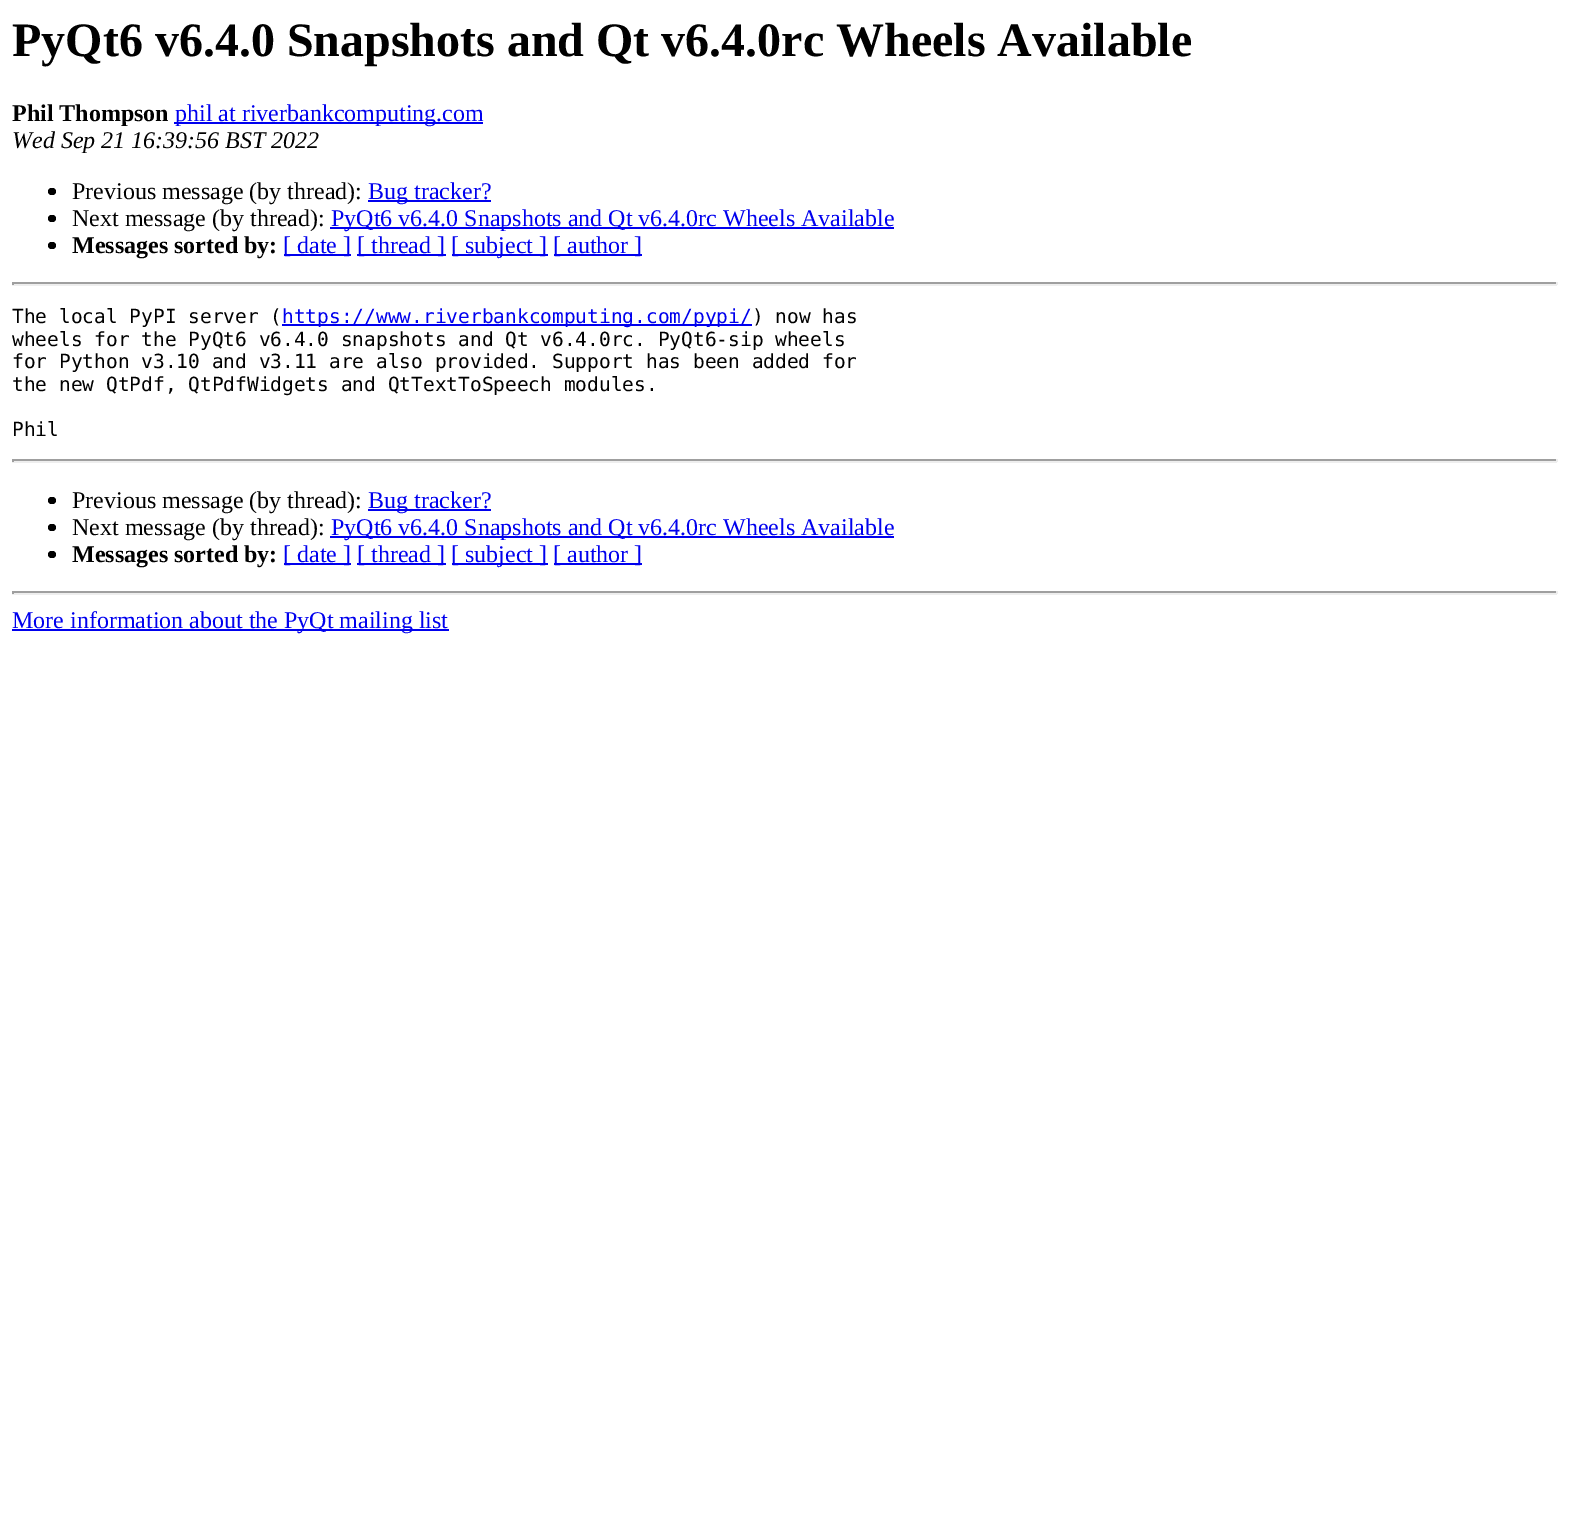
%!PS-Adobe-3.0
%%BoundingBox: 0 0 1569 1521
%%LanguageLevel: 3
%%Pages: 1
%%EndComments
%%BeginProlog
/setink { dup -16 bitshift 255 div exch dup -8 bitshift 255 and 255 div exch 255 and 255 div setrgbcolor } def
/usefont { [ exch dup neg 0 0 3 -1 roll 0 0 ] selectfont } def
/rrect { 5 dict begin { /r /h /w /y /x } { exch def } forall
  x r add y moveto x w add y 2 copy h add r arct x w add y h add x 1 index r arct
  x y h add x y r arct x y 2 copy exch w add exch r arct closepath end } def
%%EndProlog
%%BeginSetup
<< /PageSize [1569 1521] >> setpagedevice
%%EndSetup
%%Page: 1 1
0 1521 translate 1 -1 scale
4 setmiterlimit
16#FFFFFF setink
0 0 1569 1521 rectfill
/LiberationSerif-Bold 48 usefont
16#000000 setink
12 56 moveto (PyQt6 v6.4.0 Snapshots and Qt v6.4.0rc Wheels Available) show
/LiberationSerif-Bold 24 usefont
12 121 moveto (Phil Thompson) show
16#0000EE setink
174 122 309 2 rectfill
/LiberationSerif-Regular 24 usefont
175 121 moveto (phil at riverbankcomputing.com) show
/LiberationSerif-Italic 24 usefont
16#000000 setink
12 148 moveto (Wed Sep 21 16:39:56 BST 2022) show
48 188 8 7 3.5 rrect fill
/LiberationSerif-Regular 24 usefont
72 199 moveto (Previous message \(by thread\):) show
16#0000EE setink
368 200 123 2 rectfill
368 199 moveto (Bug tracker?) show
16#000000 setink
48 215 8 7 3.5 rrect fill
72 226 moveto (Next message \(by thread\):) show
16#0000EE setink
330 227 564 2 rectfill
331 226 moveto (PyQt6 v6.4.0 Snapshots and Qt v6.4.0rc Wheels Available) show
16#000000 setink
48 242 8 7 3.5 rrect fill
/LiberationSerif-Bold 24 usefont
72 253 moveto (Messages sorted by:) show
16#0000EE setink
284 254 67 2 rectfill
/LiberationSerif-Regular 24 usefont
283 253 moveto ([ date ]) show
357 254 89 2 rectfill
357 253 moveto ([ thread ]) show
452 254 96 2 rectfill
451 253 moveto ([ subject ]) show
554 254 88 2 rectfill
553 253 moveto ([ author ]) show
[
    [12 282 1545 2 16#9F9F9F]
    [1556 282 2 3 16#EEEEEE]
    [12 284 1545 2 16#EEEEEE]
    [12 282 2 3 16#9F9F9F]
] { aload pop setink rectfill } forall
/DejaVuSansMono-Regular 19.5 usefont
16#000000 setink
12 323 moveto (The local PyPI server \() show
16#0000EE setink
282 324 470 2 rectfill
282 323 moveto (https://www.riverbankcomputing.com/pypi/) show
16#000000 setink
[
    [(\) now has) 752 323]
    [(wheels for the PyQt6 v6.4.0 snapshots and Qt v6.4.0rc. PyQt6-sip wheels) 12 346]
    [(for Python v3.10 and v3.11 are also provided. Support has been added for) 12 368]
    [(the new QtPdf, QtPdfWidgets and QtTextToSpeech modules.) 12 391]
    [(Phil) 12 436]
] { aload pop moveto show } forall
[
    [12 459 1545 2 16#9F9F9F]
    [1556 459 2 3 16#EEEEEE]
    [12 461 1545 2 16#EEEEEE]
    [12 459 2 3 16#9F9F9F]
] { aload pop setink rectfill } forall
16#000000 setink
48 497 8 7 3.5 rrect fill
/LiberationSerif-Regular 24 usefont
72 508 moveto (Previous message \(by thread\):) show
16#0000EE setink
368 509 123 2 rectfill
368 508 moveto (Bug tracker?) show
16#000000 setink
48 524 8 7 3.5 rrect fill
72 535 moveto (Next message \(by thread\):) show
16#0000EE setink
330 536 564 2 rectfill
331 535 moveto (PyQt6 v6.4.0 Snapshots and Qt v6.4.0rc Wheels Available) show
16#000000 setink
48 551 8 7 3.5 rrect fill
/LiberationSerif-Bold 24 usefont
72 562 moveto (Messages sorted by:) show
16#0000EE setink
284 563 67 2 rectfill
/LiberationSerif-Regular 24 usefont
283 562 moveto ([ date ]) show
357 563 89 2 rectfill
357 562 moveto ([ thread ]) show
452 563 96 2 rectfill
451 562 moveto ([ subject ]) show
554 563 88 2 rectfill
553 562 moveto ([ author ]) show
[
    [12 591 1545 2 16#9F9F9F]
    [1556 591 2 3 16#EEEEEE]
    [12 593 1545 2 16#EEEEEE]
    [12 591 2 3 16#9F9F9F]
    [12 629 437 2 16#0000EE]
] { aload pop setink rectfill } forall
12 628 moveto (More information about the PyQt mailing list) show
showpage
%%EOF
